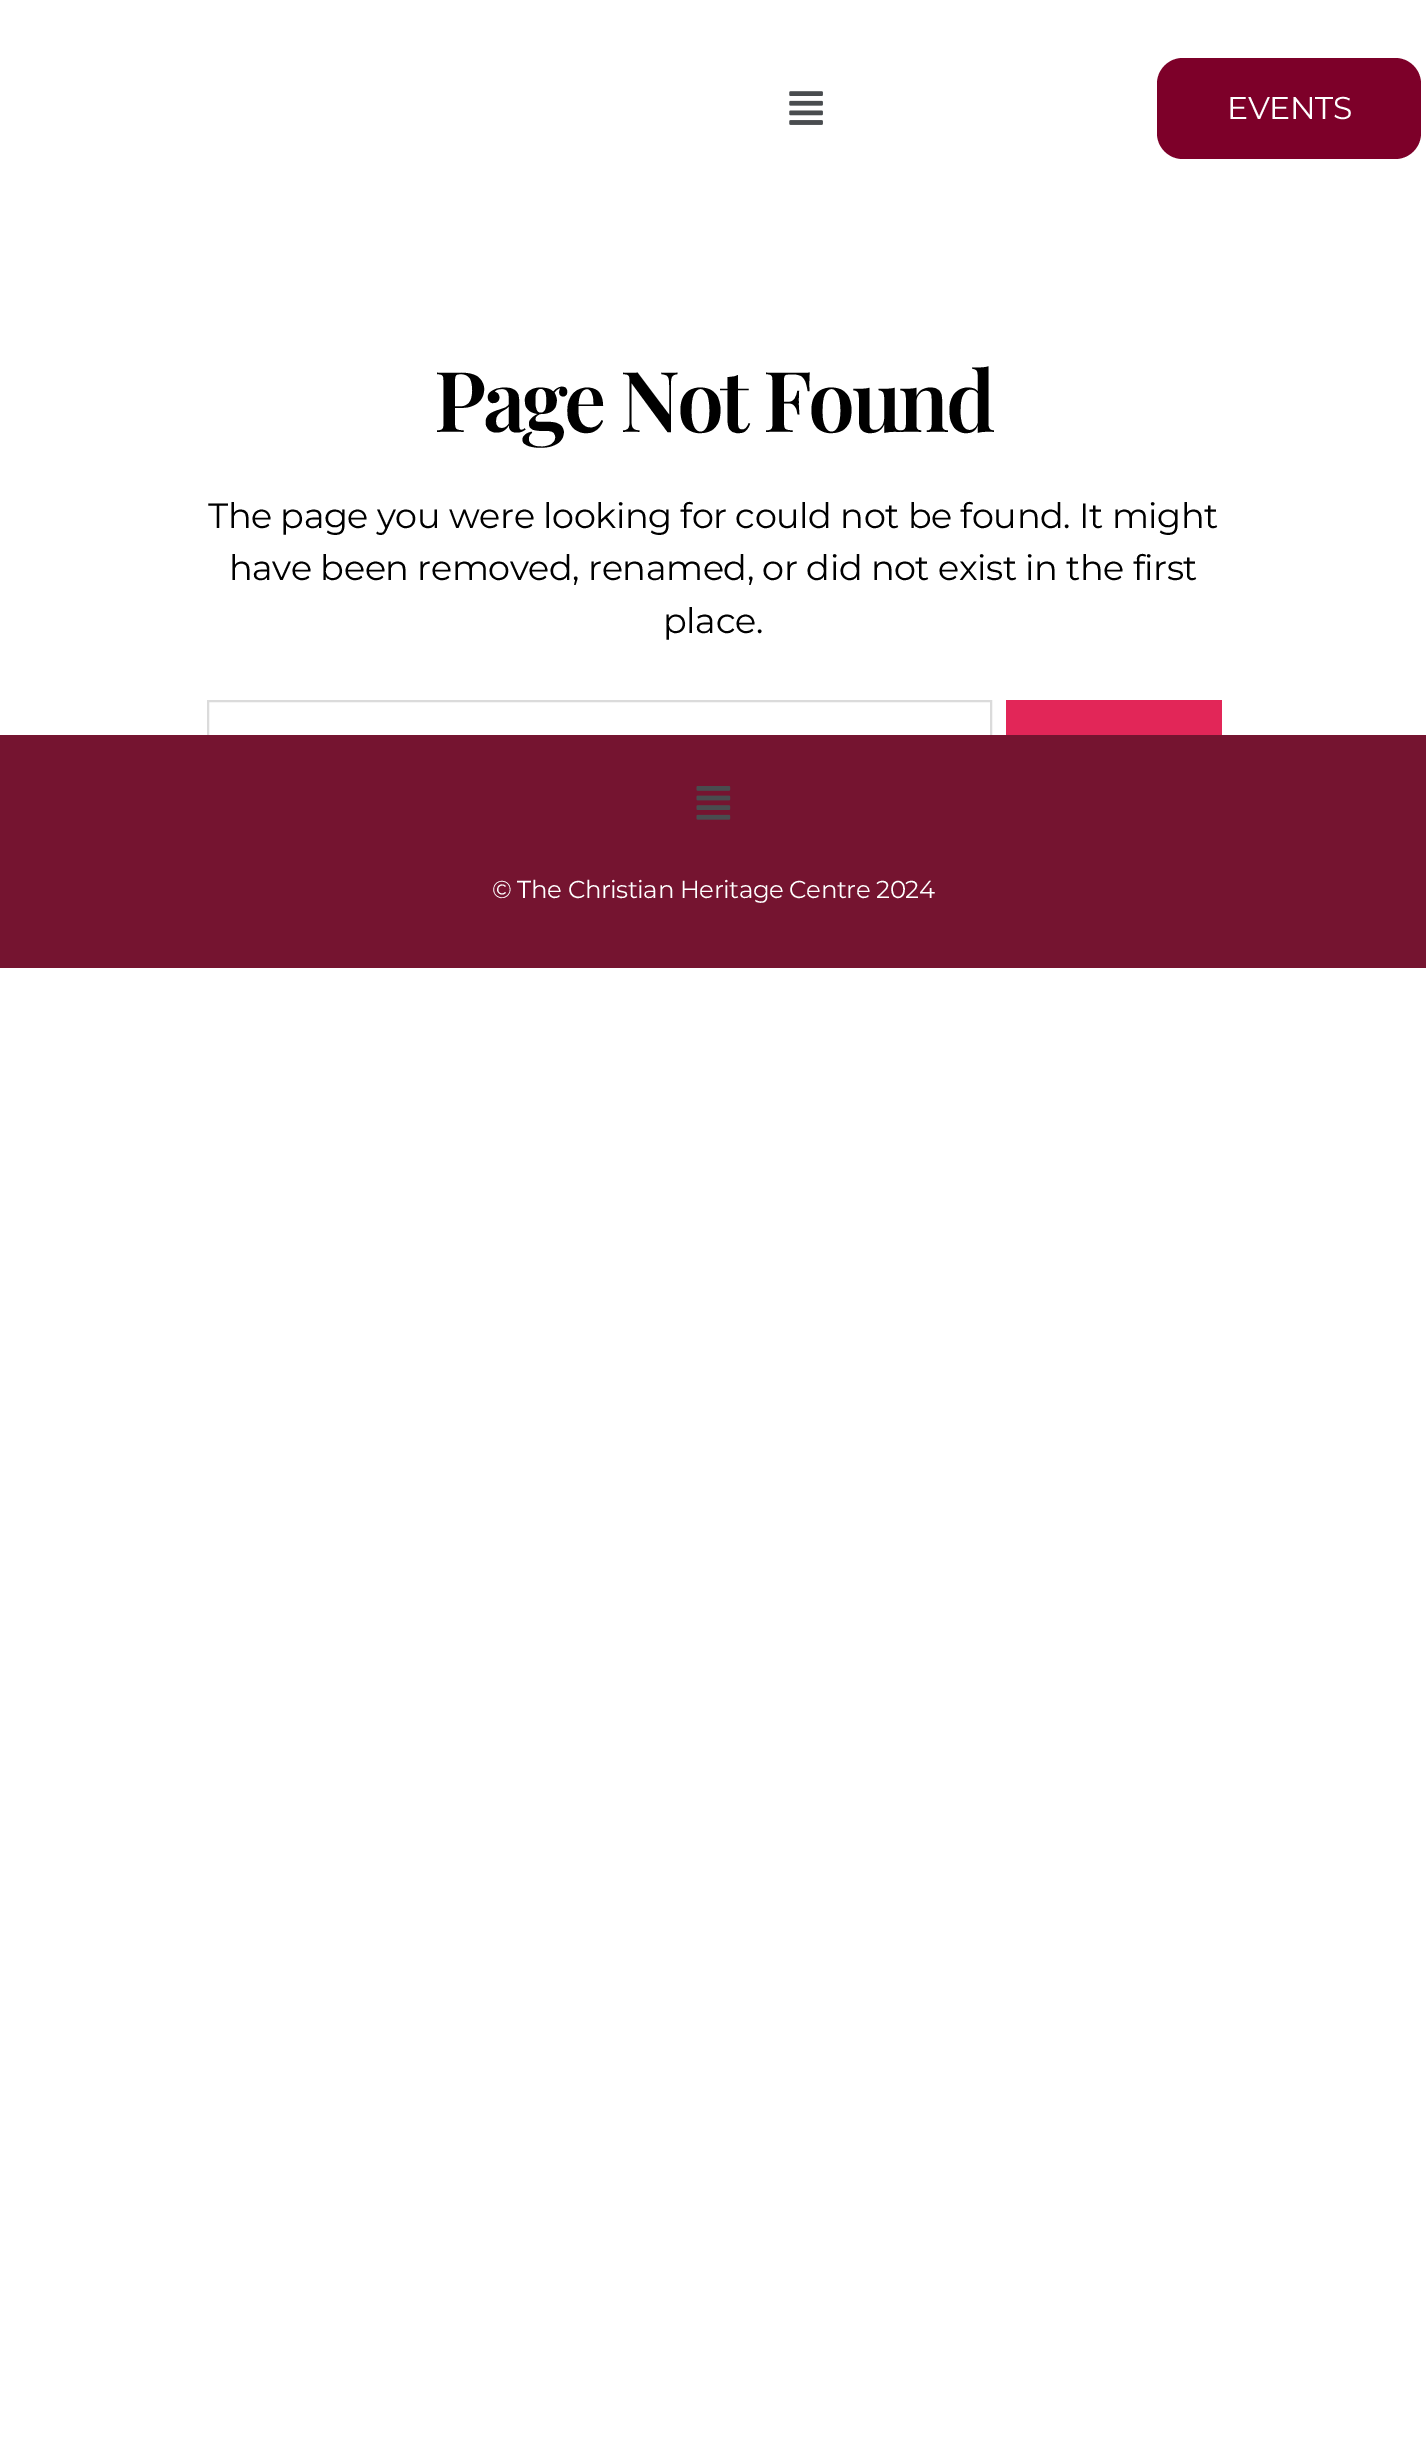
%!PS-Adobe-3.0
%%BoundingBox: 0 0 1426 2442
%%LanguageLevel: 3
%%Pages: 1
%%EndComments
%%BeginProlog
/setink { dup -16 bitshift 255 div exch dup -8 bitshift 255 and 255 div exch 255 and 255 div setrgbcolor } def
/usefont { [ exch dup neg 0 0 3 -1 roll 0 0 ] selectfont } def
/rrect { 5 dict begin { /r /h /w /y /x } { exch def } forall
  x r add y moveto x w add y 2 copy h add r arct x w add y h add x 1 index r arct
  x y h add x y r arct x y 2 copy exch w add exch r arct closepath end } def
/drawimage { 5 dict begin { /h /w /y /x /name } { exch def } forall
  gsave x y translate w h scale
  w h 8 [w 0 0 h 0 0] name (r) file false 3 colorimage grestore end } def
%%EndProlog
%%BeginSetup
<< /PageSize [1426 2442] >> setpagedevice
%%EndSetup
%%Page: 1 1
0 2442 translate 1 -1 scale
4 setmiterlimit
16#FFFFFF setink
0 0 1426 2442 rectfill
(img1.raw) 789 91 34 34 drawimage
16#7D0029 setink
1157 58 264 101 26 rrect fill
/Montserrat-Regular 31.5 usefont
16#FFFFFF setink
1227 119 moveto -0.42 0 (EVENTS) ashow
/PlayfairDisplay-SemiBold 84 usefont
16#000000 setink
434 432 moveto -3.5 0 (Page Not Found) ashow
/Montserrat-Regular 35 usefont
208 528 moveto -0.42 0 (The page you were looking for could not be found. It might) ashow
229 580 moveto -0.42 0 (have been removed, renamed, or did not exist in the first) ashow
663 633 moveto -0.42 0 (place.) ashow
16#DBDBDB setink
2 setlinewidth
208 701 783 100 rectstroke
16#E22658 setink
1006 700 216 35 rectfill
16#751430 setink
0 735 1426 233 rectfill
(img2.raw) 696 786 35 34 drawimage
/Montserrat-Regular 24.5 usefont
16#FFFFFF setink
492 898 moveto -0.42 0 (© The Christian Heritage Centre 2024) ashow
showpage
%%EOF
